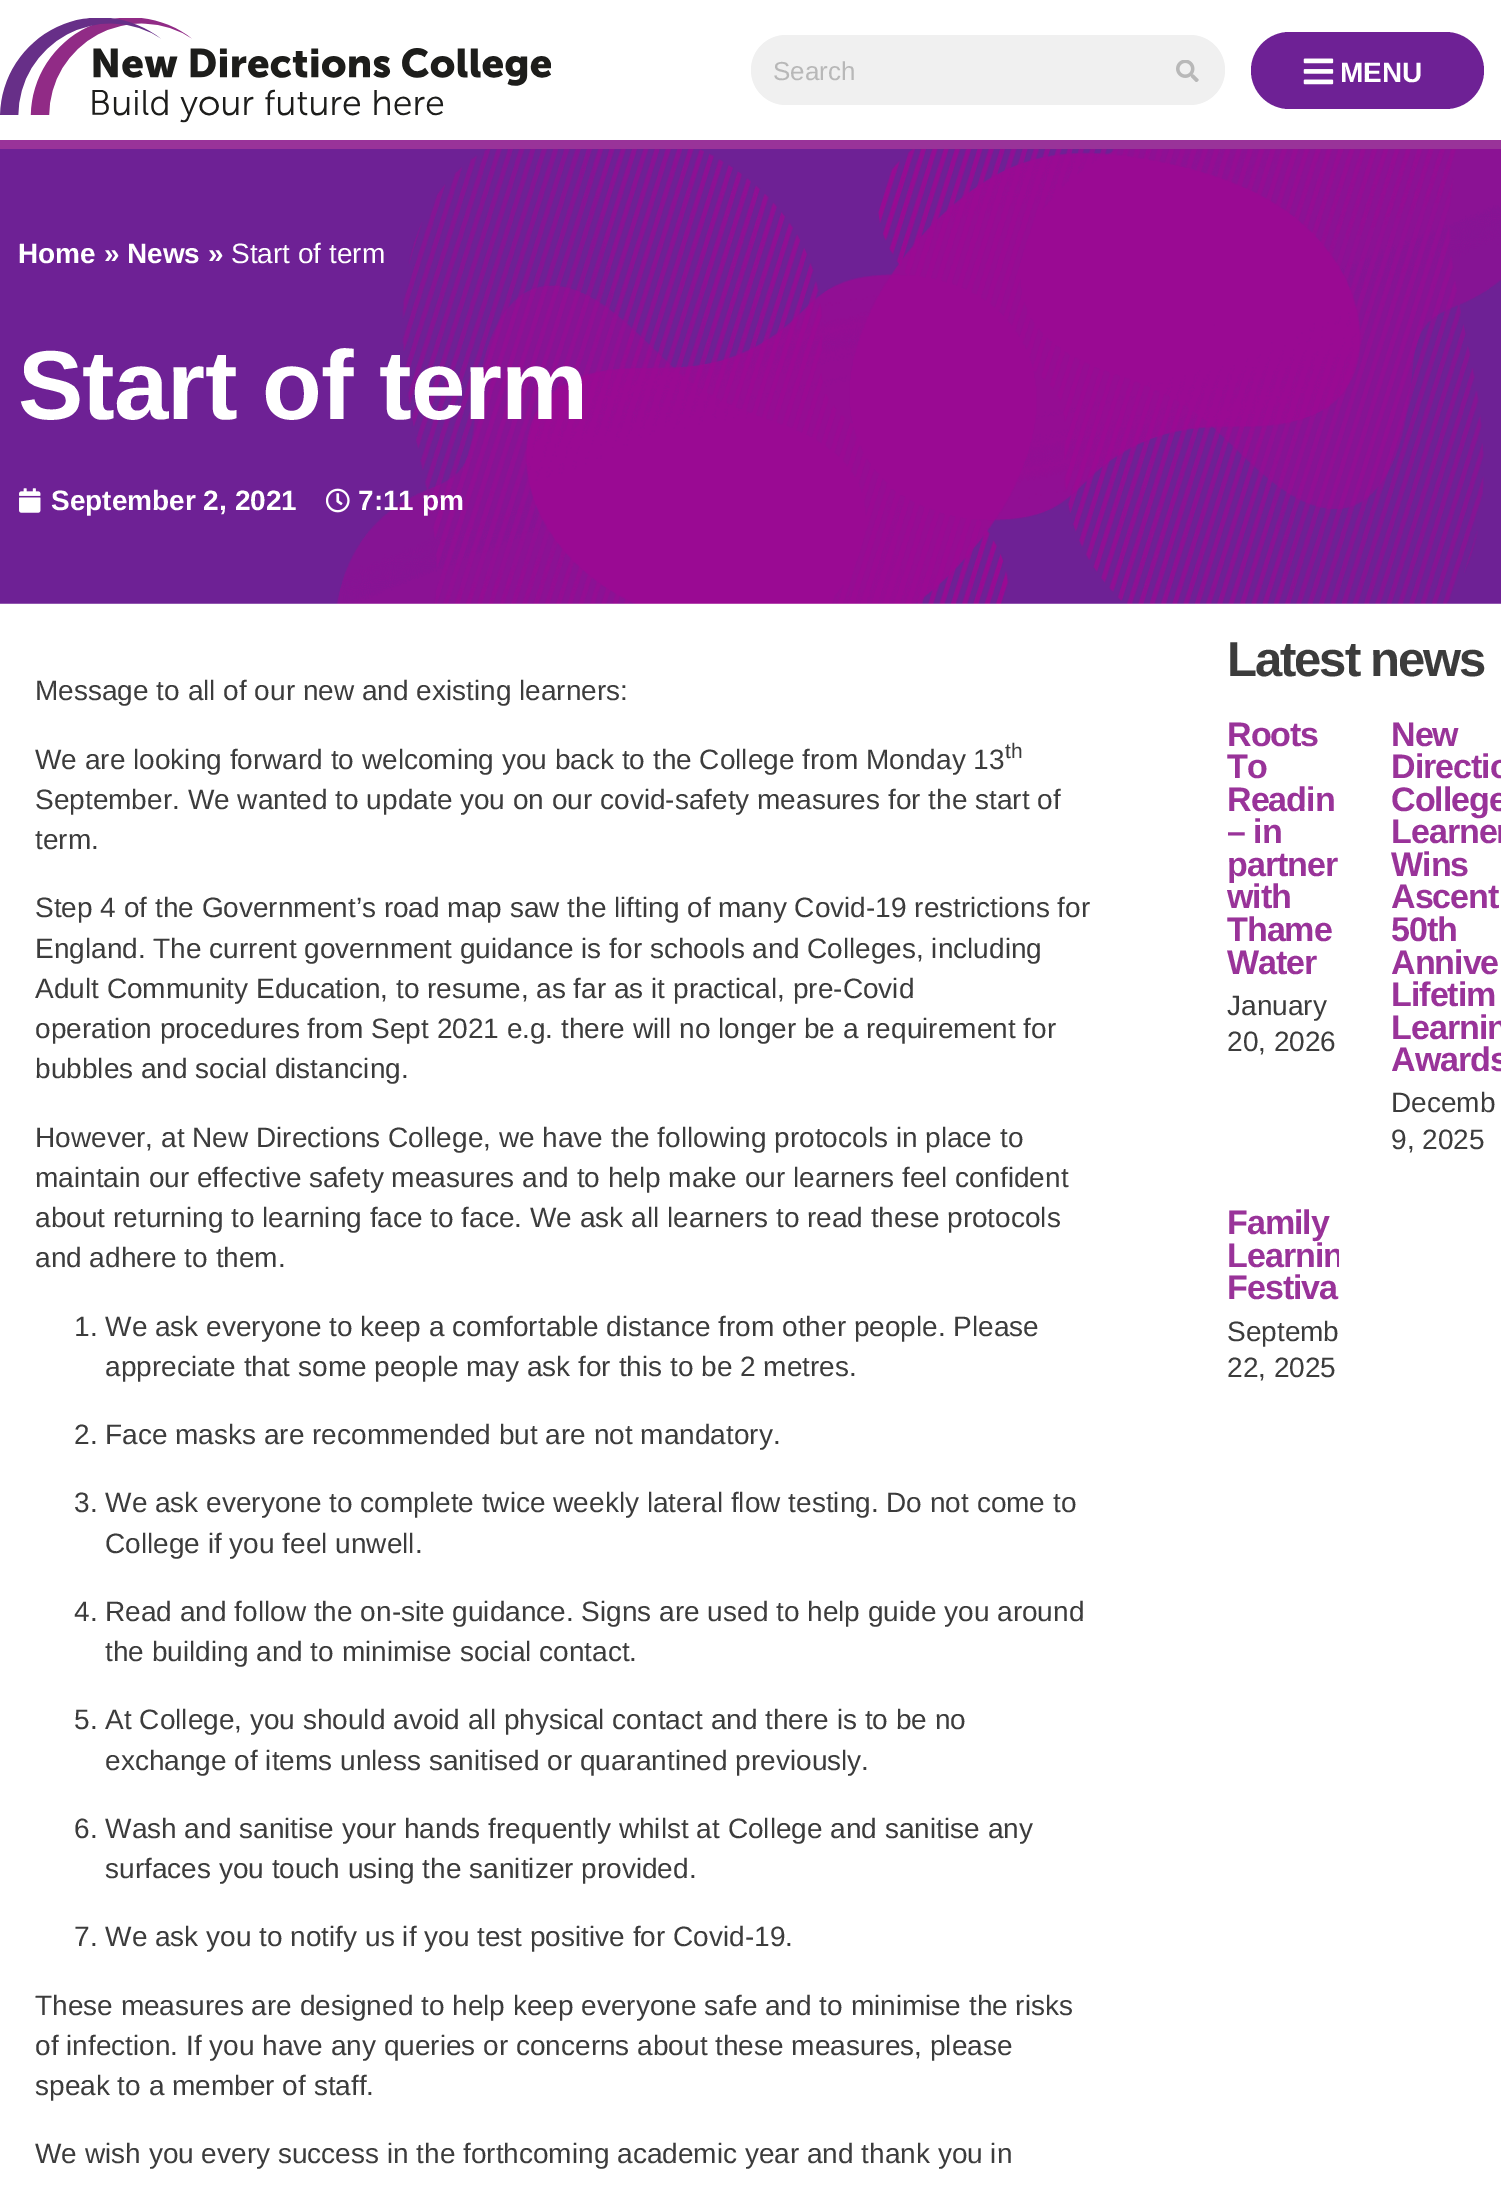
%!PS-Adobe-3.0
%%BoundingBox: 0 0 1501 2185
%%LanguageLevel: 3
%%Pages: 1
%%EndComments
%%BeginProlog
/setink { dup -16 bitshift 255 div exch dup -8 bitshift 255 and 255 div exch 255 and 255 div setrgbcolor } def
/usefont { [ exch dup neg 0 0 3 -1 roll 0 0 ] selectfont } def
/rrect { 5 dict begin { /r /h /w /y /x } { exch def } forall
  x r add y moveto x w add y 2 copy h add r arct x w add y h add x 1 index r arct
  x y h add x y r arct x y 2 copy exch w add exch r arct closepath end } def
/drawimage { 5 dict begin { /h /w /y /x /name } { exch def } forall
  gsave x y translate w h scale
  w h 8 [w 0 0 h 0 0] name (r) file false 3 colorimage grestore end } def
%%EndProlog
%%BeginSetup
<< /PageSize [1501 2185] >> setpagedevice
%%EndSetup
%%Page: 1 1
0 2185 translate 1 -1 scale
4 setmiterlimit
16#FFFFFF setink
0 0 1501 2185 rectfill
(img1.raw) 0 18 551 105 drawimage
16#F0F0F0 setink
751 35 474 70 35 rrect fill
/LiberationSans-Regular 26 usefont
16#B8B8B8 setink
773 80 moveto (Search) show
(img2.raw) 1176 60 23 22 drawimage
16#6E2195 setink
1251 32 233 77 38.5 rrect fill
(img3.raw) 1303 58 31 27 drawimage
/LiberationSans-Bold 28 usefont
16#FFFFFF setink
1340 82 moveto (MENU) show
(img4.raw) 0 149 1501 455 drawimage
16#993399 setink
0 140 1501 9 rectfill
16#FFFFFF setink
18 263 moveto (Home » News ») show
/LiberationSans-Regular 28 usefont
231 263 moveto (Start of term) show
/LiberationSans-Bold 98 usefont
18 419 moveto -1 0 (Start of term) ashow
(img5.raw) 19 488 22 25 drawimage
/LiberationSans-Bold 28 usefont
51 510 moveto (September 2, 2021) show
(img6.raw) 326 488 24 25 drawimage
358 510 moveto (7:11 pm) show
/LiberationSans-Regular 28 usefont
16#3C3C3C setink
35 700 moveto (Message to all of our new and existing learners:) show
35 769 moveto (We are looking forward to welcoming you back to the College from Monday 13) show
/LiberationSans-Regular 21 usefont
1005 758 moveto (th) show
/LiberationSans-Regular 28 usefont
[
    [(September. We wanted to update you on our covid-safety measures for the start of) 35 809]
    [(term.) 35 849]
    [(Step 4 of the Government’s road map saw the lifting of many Covid-19 restrictions for) 35 917]
    [(England. The current government guidance is for schools and Colleges, including) 35 958]
    [(Adult Community Education, to resume, as far as it practical, pre-Covid) 35 998]
    [(operation procedures from Sept 2021 e.g. there will no longer be a requirement for) 35 1038]
    [(bubbles and social distancing.) 35 1078]
    [(However, at New Directions College, we have the following protocols in place to) 35 1147]
    [(maintain our effective safety measures and to help make our learners feel confident) 35 1187]
    [(about returning to learning face to face. We ask all learners to read these protocols) 35 1227]
    [(and adhere to them.) 35 1267]
    [(1. We ask everyone to keep a comfortable distance from other people. Please) 74 1336]
    [(appreciate that some people may ask for this to be 2 metres.) 105 1376]
    [(2. Face masks are recommended but are not mandatory.) 74 1444]
    [(3. We ask everyone to complete twice weekly lateral flow testing. Do not come to) 74 1512]
    [(College if you feel unwell.) 105 1553]
    [(4. Read and follow the on-site guidance. Signs are used to help guide you around) 74 1621]
    [(the building and to minimise social contact.) 105 1661]
    [(5. At College, you should avoid all physical contact and there is to be no) 74 1729]
    [(exchange of items unless sanitised or quarantined previously.) 105 1770]
    [(6. Wash and sanitise your hands frequently whilst at College and sanitise any) 74 1838]
    [(surfaces you touch using the sanitizer provided.) 105 1878]
    [(7. We ask you to notify us if you test positive for Covid-19.) 74 1946]
    [(These measures are designed to help keep everyone safe and to minimise the risks) 35 2015]
    [(of infection. If you have any queries or concerns about these measures, please) 35 2055]
    [(speak to a member of staff.) 35 2095]
    [(We wish you every success in the forthcoming academic year and thank you in) 35 2163]
] { aload pop moveto show } forall
/LiberationSans-Bold 49 usefont
1227 676 moveto -2.1 0 (Latest news) ashow
/LiberationSans-Bold 34 usefont
16#993399 setink
1227 746 moveto -1 0 (Roots) ashow
1227 778 moveto -1 0 (To) ashow
1227 811 moveto -1 0 (Readin) ashow
1227 843 moveto -1 0 (– in) ashow
1227 876 moveto -1 0 (partner) ashow
1227 908 moveto -1 0 (with) ashow
1227 941 moveto -1 0 (Thame) ashow
1227 974 moveto -1 0 (Water) ashow
/LiberationSans-Regular 28 usefont
16#3C3C3C setink
1227 1015 moveto (January) show
1227 1051 moveto (20, 2026) show
/LiberationSans-Bold 34 usefont
16#993399 setink
1391 746 moveto -1 0 (New) ashow
1391 778 moveto -1 0 (Directio) ashow
1391 811 moveto -1 0 (College) ashow
1391 843 moveto -1 0 (Learner) ashow
1391 876 moveto -1 0 (Wins) ashow
1391 908 moveto -1 0 (Ascent) ashow
1391 941 moveto -1 0 (50th) ashow
1391 974 moveto -1 0 (Annive) ashow
1391 1006 moveto -1 0 (Lifetim) ashow
1391 1039 moveto -1 0 (Learnin) ashow
1391 1071 moveto -1 0 (Awards) ashow
/LiberationSans-Regular 28 usefont
16#3C3C3C setink
1391 1112 moveto (Decemb) show
1391 1149 moveto (9, 2025) show
/LiberationSans-Bold 34 usefont
16#993399 setink
1227 1234 moveto -1 0 (Family) ashow
gsave
1227 1208 112 203 rectclip
1227 1267 moveto -1 0 (Learnin) ashow
grestore
1227 1299 moveto -1 0 (Festiva) ashow
/LiberationSans-Regular 28 usefont
16#3C3C3C setink
1227 1341 moveto (Septemb) show
1227 1377 moveto (22, 2025) show
showpage
%%EOF
